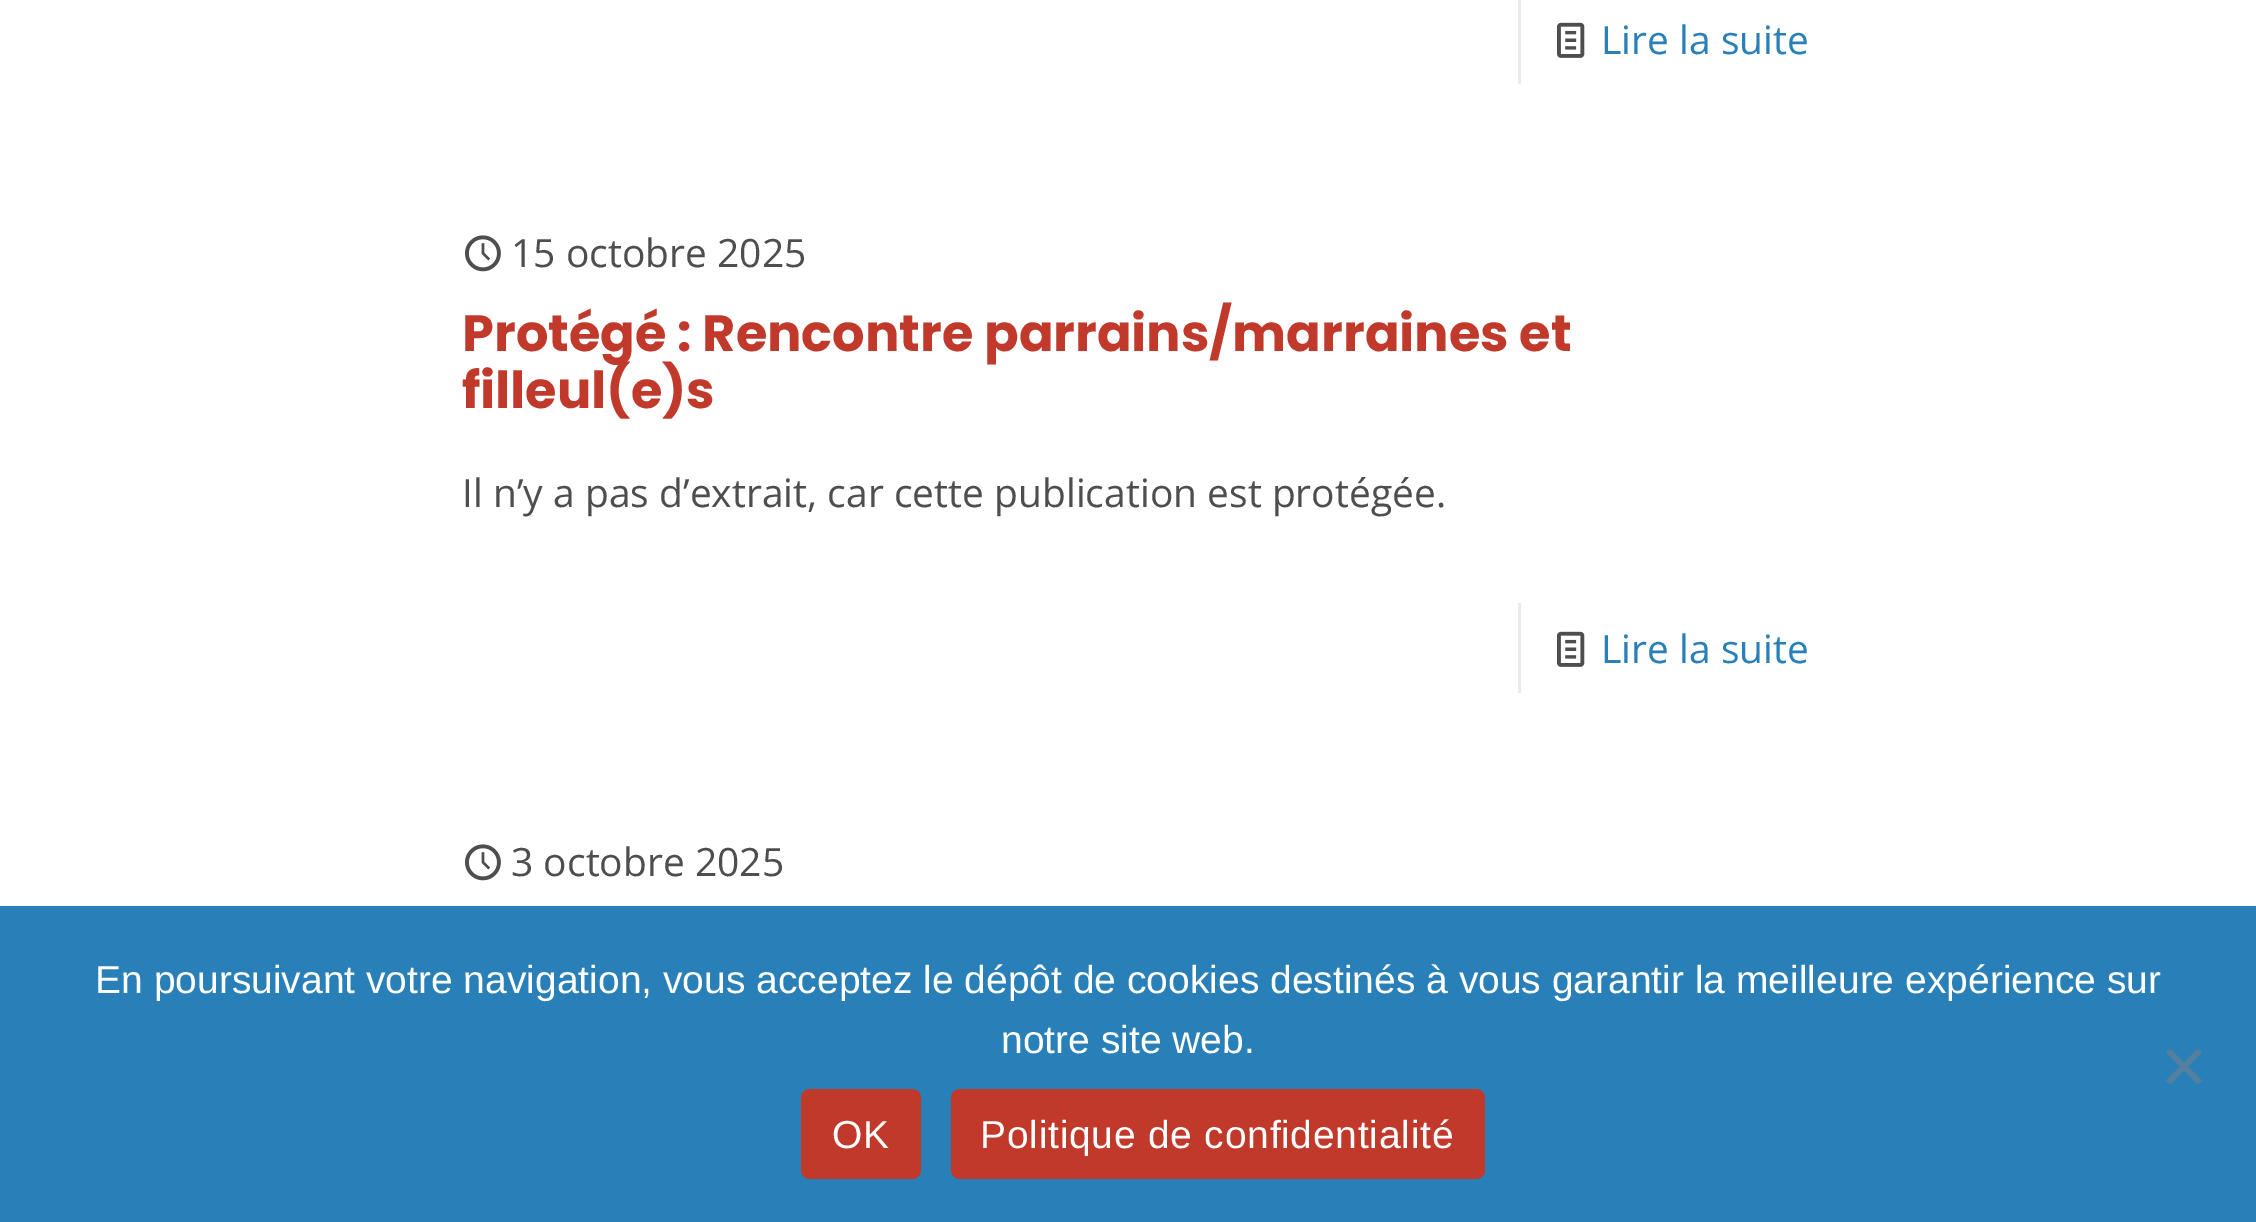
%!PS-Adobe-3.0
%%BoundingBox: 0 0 2256 1222
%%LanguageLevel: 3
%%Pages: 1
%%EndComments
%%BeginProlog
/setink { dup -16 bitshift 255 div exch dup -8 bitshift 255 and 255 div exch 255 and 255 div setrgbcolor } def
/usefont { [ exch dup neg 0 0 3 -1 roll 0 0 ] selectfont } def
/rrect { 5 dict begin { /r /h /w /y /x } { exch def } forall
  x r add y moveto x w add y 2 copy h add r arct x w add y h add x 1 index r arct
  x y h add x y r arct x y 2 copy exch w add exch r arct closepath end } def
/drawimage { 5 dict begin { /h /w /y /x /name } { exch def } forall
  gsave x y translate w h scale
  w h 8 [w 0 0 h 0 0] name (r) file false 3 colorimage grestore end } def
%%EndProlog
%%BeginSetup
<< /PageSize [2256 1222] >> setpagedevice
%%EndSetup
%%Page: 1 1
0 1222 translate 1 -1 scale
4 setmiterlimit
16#FFFFFF setink
0 0 2256 1222 rectfill
16#EBEBEB setink
1518 0 3 84 rectfill
(img1.raw) 1557 22 28 36 drawimage
/OpenSans-Regular 39 usefont
16#2980B9 setink
1601 54 moveto (Lire la suite) show
(img2.raw) 465 235 36 37 drawimage
16#4E4E4E setink
511 267 moveto (15 octobre 2025) show
/Poppins-Bold 51 usefont
16#C0392B setink
462 351 moveto (Protégé : Rencontre parrains/marraines et) show
462 408 moveto (filleul\(e\)s) show
/OpenSans-Regular 39 usefont
16#4E4E4E setink
462 507 moveto (Il n’y a pas d’extrait, car cette publication est protégée.) show
16#EBEBEB setink
1518 603 3 90 rectfill
(img1.raw) 1557 631 28 36 drawimage
16#2980B9 setink
1601 663 moveto (Lire la suite) show
(img2.raw) 465 844 36 37 drawimage
16#4E4E4E setink
511 876 moveto (3 octobre 2025) show
16#2980B9 setink
0 906 2256 316 rectfill
/LiberationSans-Regular 39 usefont
16#FFFFFF setink
95 993 moveto (En poursuivant votre navigation, vous acceptez le dépôt de cookies destinés à vous garantir la meilleure expérience sur) show
1001 1053 moveto (notre site web.) show
16#55809D setink
2198 1048.5 moveto 2202 1052.5 lineto 2170 1084.5 lineto 2166 1080.5 lineto closepath fill
2166 1052.5 moveto 2170 1048.5 lineto 2202 1080.5 lineto 2198 1084.5 lineto closepath fill
16#C0392B setink
801 1089 120 90 9 rrect fill
16#FFFFFF setink
832 1148 moveto 0.75 0 (OK) ashow
16#C0392B setink
951 1089 534 90 9 rrect fill
16#FFFFFF setink
980 1148 moveto 0.75 0 (Politique de confidentialité) ashow
showpage
%%EOF
